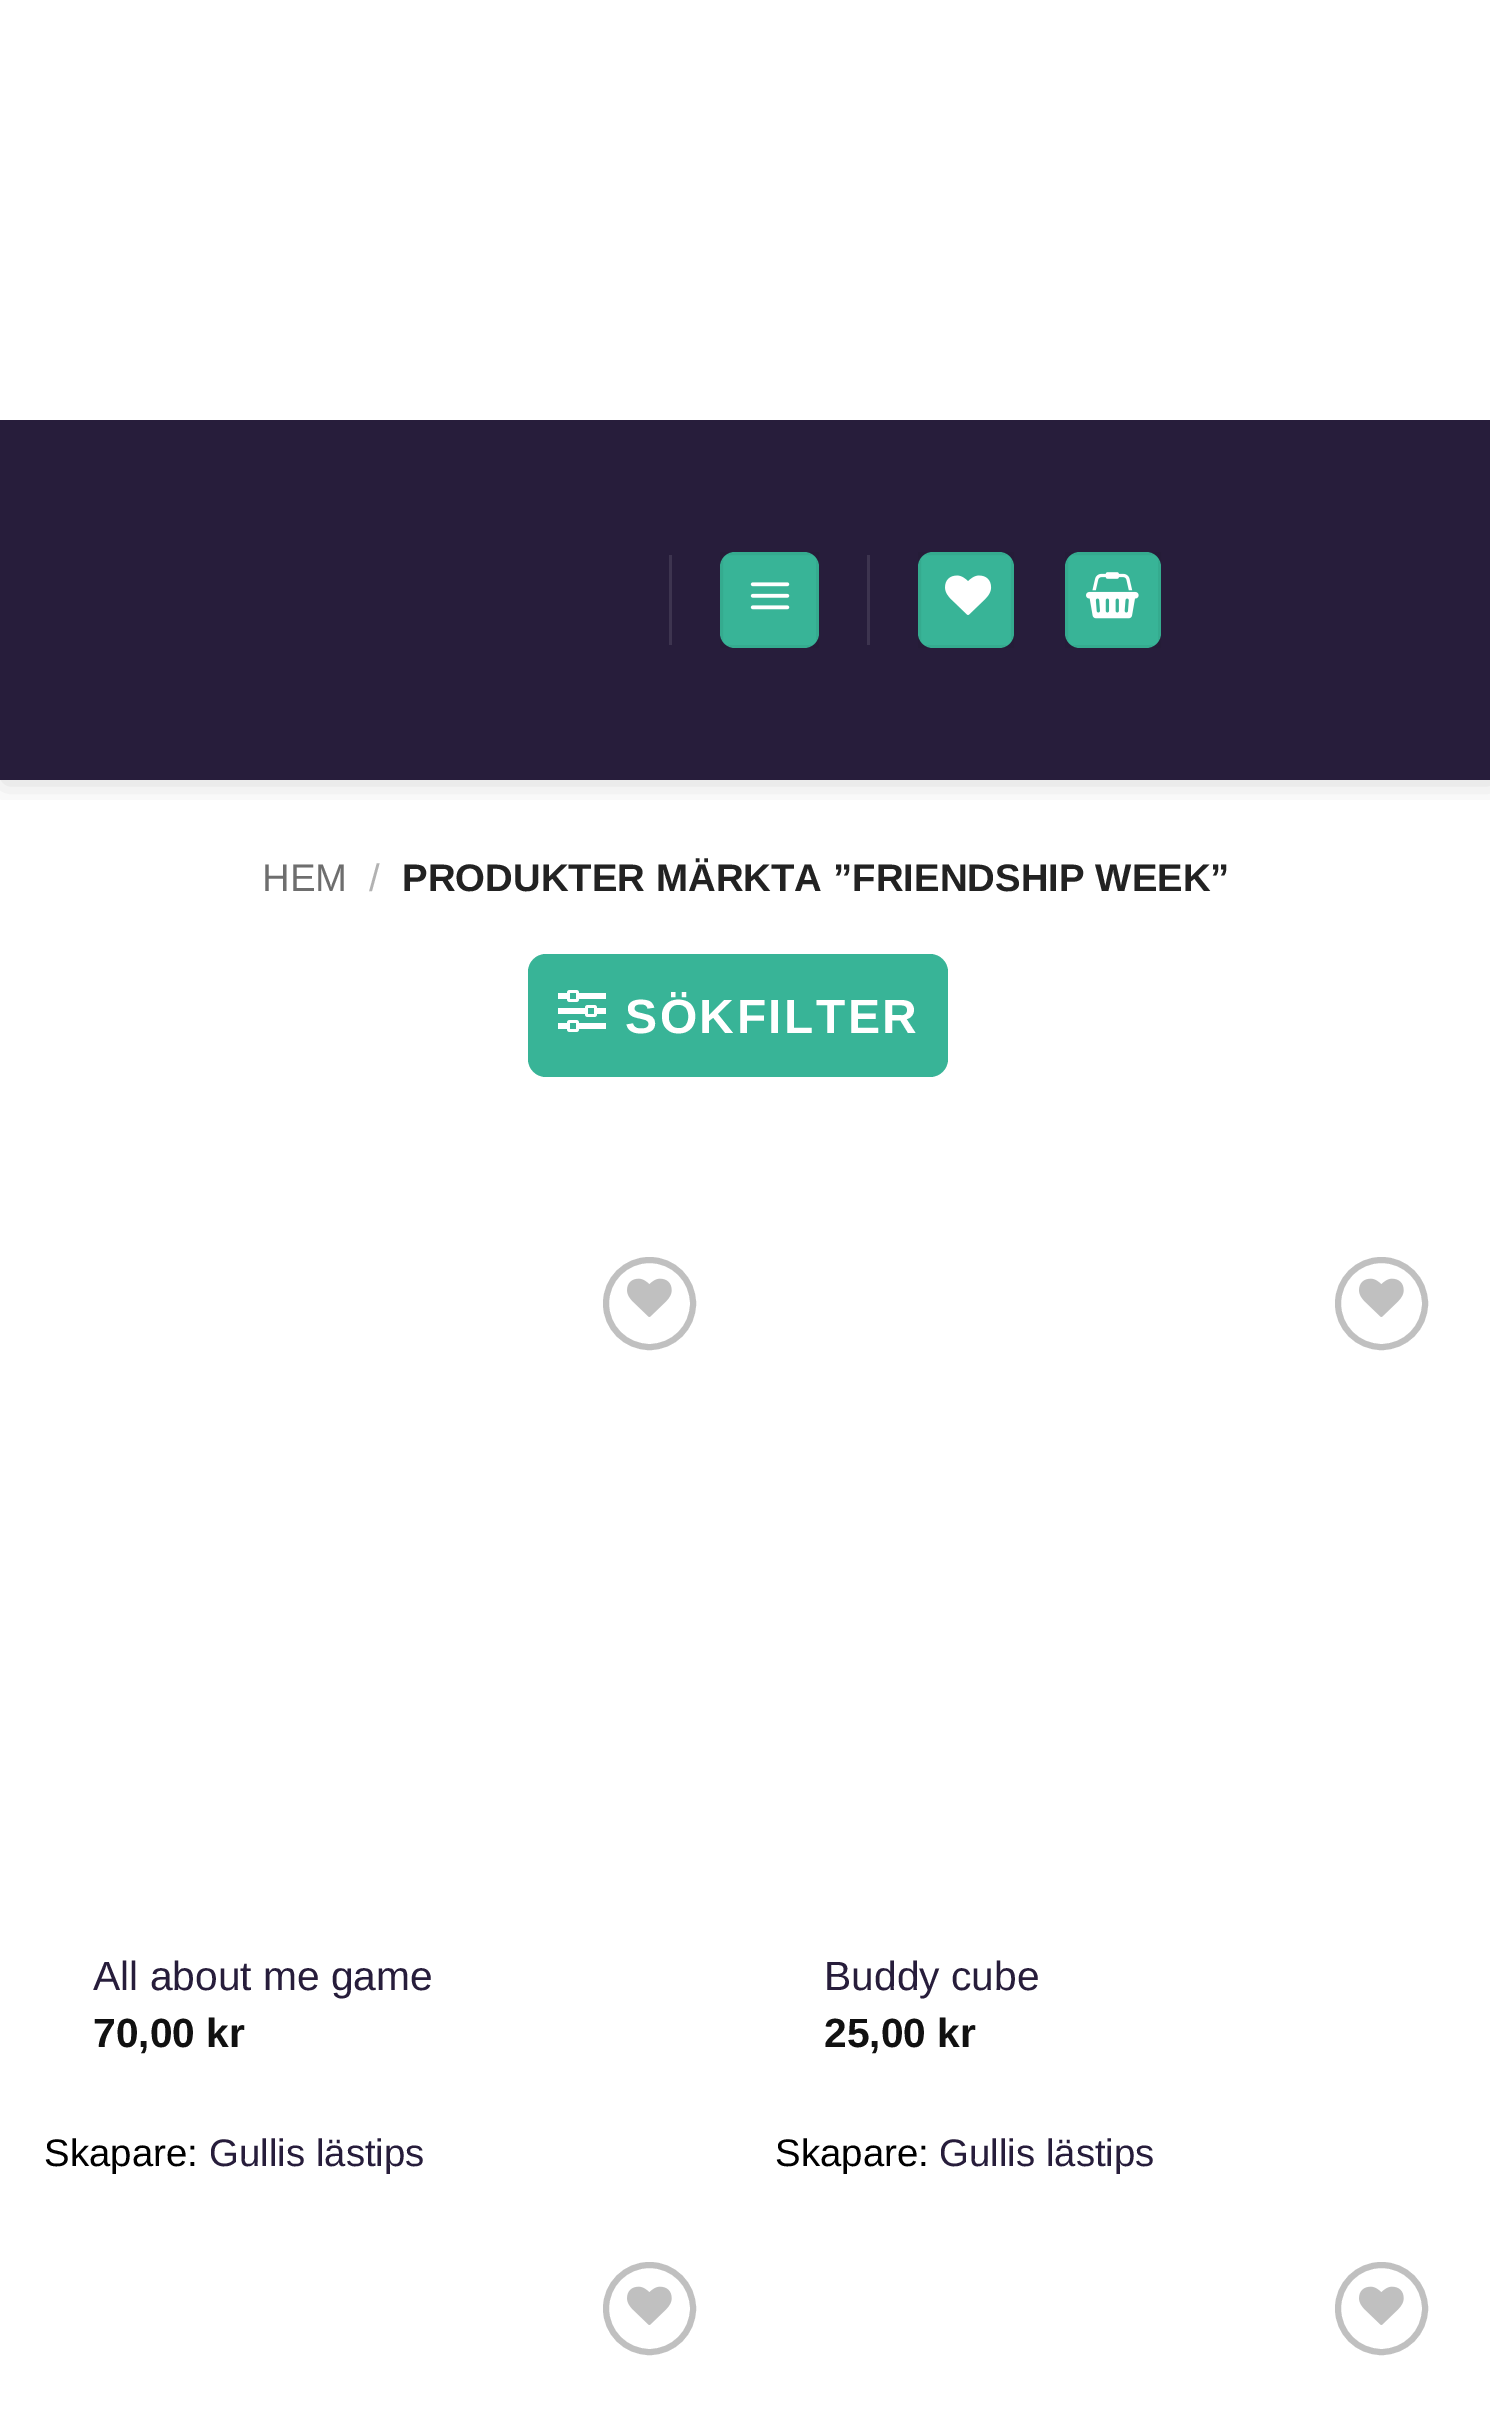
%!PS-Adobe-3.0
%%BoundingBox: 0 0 1490 2420
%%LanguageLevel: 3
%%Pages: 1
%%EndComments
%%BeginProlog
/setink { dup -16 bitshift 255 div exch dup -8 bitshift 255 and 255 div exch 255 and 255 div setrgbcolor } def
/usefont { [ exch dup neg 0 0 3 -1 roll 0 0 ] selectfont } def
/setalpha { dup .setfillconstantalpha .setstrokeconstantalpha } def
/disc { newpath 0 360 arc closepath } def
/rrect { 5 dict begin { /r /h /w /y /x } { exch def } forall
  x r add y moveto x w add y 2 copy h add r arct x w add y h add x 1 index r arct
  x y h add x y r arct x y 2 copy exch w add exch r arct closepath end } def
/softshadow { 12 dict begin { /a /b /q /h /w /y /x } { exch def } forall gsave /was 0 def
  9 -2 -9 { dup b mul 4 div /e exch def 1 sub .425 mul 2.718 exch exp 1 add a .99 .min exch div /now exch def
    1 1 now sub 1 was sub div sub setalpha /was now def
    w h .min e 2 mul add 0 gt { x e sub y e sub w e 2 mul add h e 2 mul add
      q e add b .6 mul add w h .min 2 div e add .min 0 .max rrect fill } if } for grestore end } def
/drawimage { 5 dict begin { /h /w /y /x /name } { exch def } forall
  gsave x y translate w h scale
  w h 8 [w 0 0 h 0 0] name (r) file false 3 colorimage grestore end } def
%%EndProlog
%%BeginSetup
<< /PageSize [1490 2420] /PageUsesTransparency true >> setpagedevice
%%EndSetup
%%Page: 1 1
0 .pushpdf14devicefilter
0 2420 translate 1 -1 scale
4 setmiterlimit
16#FFFFFF setink
0 0 1490 2420 rectfill
gsave
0 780 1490 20 rectclip
16#000000 setink
3 3 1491 780 0 15 0.15 softshadow
grestore
16#271D3B setink
0 420 1490 360 rectfill
16#3D344F setink
669 555 3 90 rectfill
16#38B497 setink
720 552 99 96 15 rrect fill
0.05 setalpha
16#000000 setink
3 setlinewidth
721.5 553.5 96 93 rectstroke
1 setalpha
(img1.raw) 750 582 40 28 drawimage
16#3D344F setink
867 555 3 90 rectfill
16#38B497 setink
918 552 96 96 15 rrect fill
0.05 setalpha
16#000000 setink
919.5 553.5 93 93 rectstroke
1 setalpha
(img2.raw) 945 575 47 40 drawimage
16#38B497 setink
1065 552 96 96 15 rrect fill
0.05 setalpha
16#000000 setink
1066.5 553.5 93 93 rectstroke
1 setalpha
(img3.raw) 1086 572 53 47 drawimage
/LiberationSans-Regular 38.4 usefont
16#6E6E6E setink
262 891 moveto (HEM) show
16#B2B2B2 setink
369 891 moveto (/) show
/LiberationSans-Bold 38.4 usefont
16#222222 setink
402 891 moveto (PRODUKTER MÄRKTA ”FRIENDSHIP WEEK”) show
16#38B497 setink
528 954 420 123 18 rrect fill
(img4.raw) 558 990 48 42 drawimage
/LiberationSans-Bold 48 usefont
16#FFFFFF setink
625 1033 moveto 2.5 0 (SÖKFILTER) ashow
16#C0C0C0 setink
6 setlinewidth
649.5 1303.5 43.5 disc stroke
(img5.raw) 627 1278 45 39 drawimage
/LiberationSans-Regular 40.75 usefont
16#271D3B setink
93 1990 moveto (All about me game) show
/LiberationSans-Bold 40.75 usefont
16#111111 setink
93 2047 moveto (70,00 kr) show
/LiberationSans-Regular 38.4 usefont
16#000000 setink
44 2166 moveto (Skapare:) show
16#271D3B setink
209 2166 moveto (Gullis lästips) show
16#C0C0C0 setink
1381.5 1303.5 43.5 disc stroke
(img5.raw) 1359 1278 45 39 drawimage
/LiberationSans-Regular 40.75 usefont
16#271D3B setink
824 1990 moveto (Buddy cube) show
/LiberationSans-Bold 40.75 usefont
16#111111 setink
824 2047 moveto (25,00 kr) show
/LiberationSans-Regular 38.4 usefont
16#000000 setink
775 2166 moveto (Skapare:) show
16#271D3B setink
939 2166 moveto (Gullis lästips) show
16#C0C0C0 setink
649.5 2308.5 43.5 disc stroke
(img5.raw) 627 2286 45 39 drawimage
1381.5 2308.5 43.5 disc stroke
(img5.raw) 1359 2286 45 39 drawimage
.poppdf14devicefilter showpage
%%EOF
